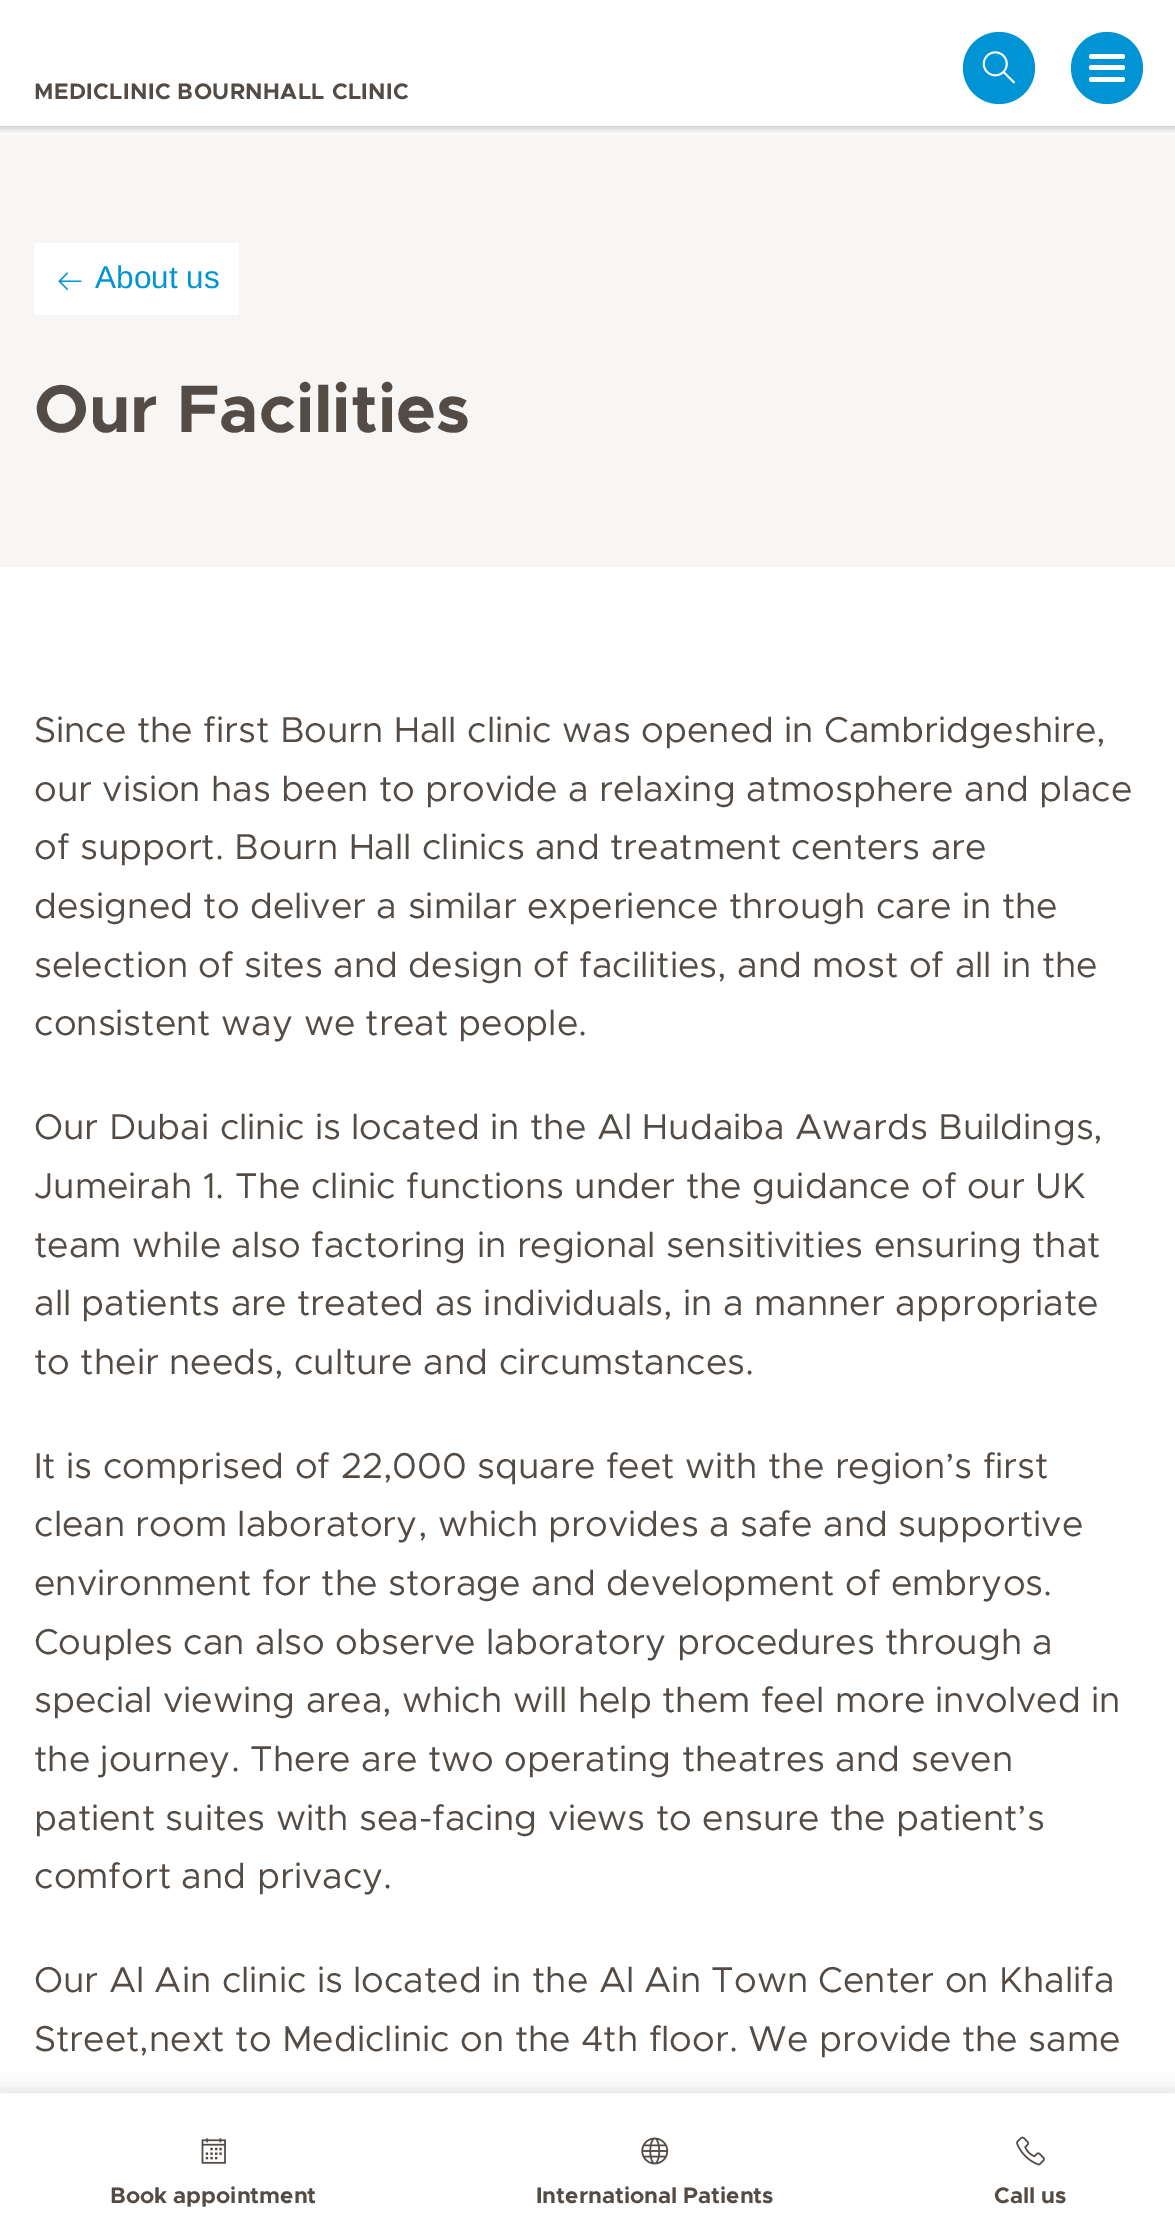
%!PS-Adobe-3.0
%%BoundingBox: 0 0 1175 2234
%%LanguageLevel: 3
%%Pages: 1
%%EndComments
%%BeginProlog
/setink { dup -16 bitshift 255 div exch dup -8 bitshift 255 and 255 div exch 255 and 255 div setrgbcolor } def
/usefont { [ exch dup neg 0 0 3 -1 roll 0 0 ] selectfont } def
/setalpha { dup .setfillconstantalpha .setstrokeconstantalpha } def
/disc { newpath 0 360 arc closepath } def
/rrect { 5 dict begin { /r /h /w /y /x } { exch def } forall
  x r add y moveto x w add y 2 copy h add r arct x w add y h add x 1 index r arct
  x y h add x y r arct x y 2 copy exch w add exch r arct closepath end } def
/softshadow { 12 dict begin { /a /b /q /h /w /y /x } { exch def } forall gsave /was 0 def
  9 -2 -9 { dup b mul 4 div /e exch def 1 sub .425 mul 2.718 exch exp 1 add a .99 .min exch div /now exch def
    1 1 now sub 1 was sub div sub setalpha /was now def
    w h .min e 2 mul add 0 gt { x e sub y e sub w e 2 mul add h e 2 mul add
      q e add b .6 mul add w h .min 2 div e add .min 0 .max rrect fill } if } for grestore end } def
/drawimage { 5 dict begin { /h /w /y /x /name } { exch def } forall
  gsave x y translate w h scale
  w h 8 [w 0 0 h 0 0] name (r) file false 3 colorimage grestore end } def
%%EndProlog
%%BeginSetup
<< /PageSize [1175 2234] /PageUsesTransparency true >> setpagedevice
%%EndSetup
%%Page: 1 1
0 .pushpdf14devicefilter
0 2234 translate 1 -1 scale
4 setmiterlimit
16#FFFFFF setink
0 0 1175 2234 rectfill
16#F7F6F5 setink
0 135 1175 432 rectfill
gsave
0 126 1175 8 rectclip
16#000000 setink
0 2 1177 126 0 4.5 0.25 softshadow
grestore
/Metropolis-Bold 22.5 usefont
16#534C46 setink
34 99 moveto 0.45 0 (MEDICLINIC BOURNHALL CLINIC) ashow
16#0094D4 setink
999 68 36 disc fill
(img1.raw) 982 51 34 33 drawimage
1107 68 36 disc fill
16#FFFFFF setink
1089 54 36 5 2.5 rrect fill
1089 65 36 5 2.5 rrect fill
1089 77 36 5 2.5 rrect fill
16#000000 setink
0 2095 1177 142 0 11 0.2 softshadow
16#FFFFFF setink
0 2093 1175 141 rectfill
(img2.raw) 201 2138 25 26 drawimage
16#534C46 setink
110 2203 moveto (Book appointment) show
(img3.raw) 641 2137 28 28 drawimage
536 2203 moveto (International Patients) show
(img4.raw) 1016 2136 29 30 drawimage
994 2203 moveto (Call us) show
16#FFFFFF setink
34 243 205 72 rectfill
(img5.raw) 58 272 24 19 drawimage
/LiberationSans-Regular 31.5 usefont
16#0094D4 setink
95 288 moveto (About us) show
/Metropolis-Bold 67.5 usefont
16#534C46 setink
34 432 moveto (Our Facilities) show
/Metropolis-Regular 36 usefont
[
    [(Since the first Bourn Hall clinic was opened in Cambridgeshire,) 34 742]
    [(our vision has been to provide a relaxing atmosphere and place) 34 801]
    [(of support. Bourn Hall clinics and treatment centers are) 34 859]
    [(designed to deliver a similar experience through care in the) 34 918]
    [(selection of sites and design of facilities, and most of all in the) 34 977]
    [(consistent way we treat people.) 34 1035]
    [(Our Dubai clinic is located in the Al Hudaiba Awards Buildings,) 34 1139]
    [(Jumeirah 1. The clinic functions under the guidance of our UK) 34 1198]
    [(team while also factoring in regional sensitivities ensuring that) 34 1257]
    [(all patients are treated as individuals, in a manner appropriate) 34 1315]
    [(to their needs, culture and circumstances.) 34 1374]
    [(It is comprised of 22,000 square feet with the region’s first) 34 1478]
    [(clean room laboratory, which provides a safe and supportive) 34 1536]
    [(environment for the storage and development of embryos.) 34 1595]
    [(Couples can also observe laboratory procedures through a) 34 1654]
    [(special viewing area, which will help them feel more involved in) 34 1712]
    [(the journey. There are two operating theatres and seven) 34 1771]
    [(patient suites with sea-facing views to ensure the patient’s) 34 1830]
    [(comfort and privacy.) 34 1888]
    [(Our Al Ain clinic is located in the Al Ain Town Center on Khalifa) 34 1992]
    [(Street,next to Mediclinic on the 4th floor. We provide the same) 34 2051]
] { aload pop moveto show } forall
.poppdf14devicefilter showpage
%%EOF
